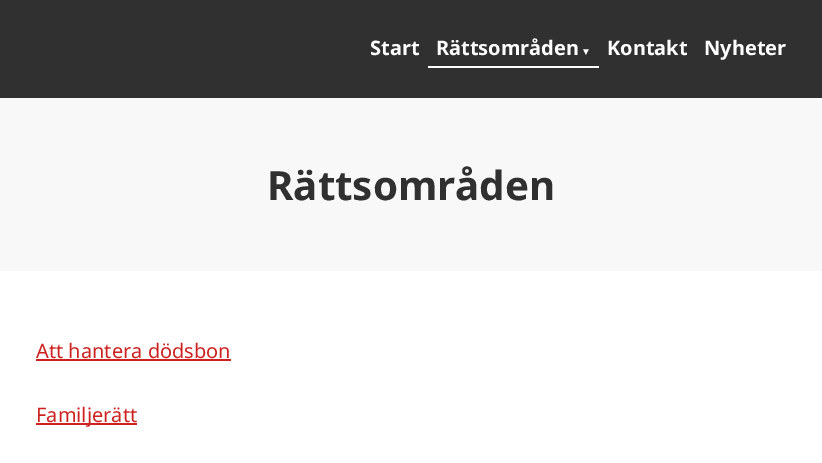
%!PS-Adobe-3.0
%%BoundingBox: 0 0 822 463
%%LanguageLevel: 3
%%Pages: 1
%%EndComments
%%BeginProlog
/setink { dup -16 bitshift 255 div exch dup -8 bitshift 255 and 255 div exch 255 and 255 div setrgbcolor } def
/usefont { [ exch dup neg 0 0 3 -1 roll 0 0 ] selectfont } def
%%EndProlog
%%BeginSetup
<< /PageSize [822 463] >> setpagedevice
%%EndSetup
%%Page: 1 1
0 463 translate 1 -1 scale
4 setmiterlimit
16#FFFFFF setink
0 0 822 463 rectfill
16#303030 setink
0 0 822 98 rectfill
/NotoSans-Bold 20 usefont
16#FFFFFF setink
370 55 moveto (Start) show
428 66 171 2 rectfill
436 55 moveto (Rättsområden) show
/LiberationSans-Bold 10 usefont
581 55 moveto (▼) show
/NotoSans-Bold 20 usefont
607 55 moveto (Kontakt) show
704 55 moveto (Nyheter) show
16#F8F8F8 setink
0 98 822 173 rectfill
/NotoSans-Bold 40.25 usefont
16#303030 setink
267 200 moveto (Rättsområden) show
/NotoSans-Regular 20 usefont
16#CD2220 setink
36 358 moveto (Att hantera dödsbon) show
36 359 195 2 rectfill
36 423 101 2 rectfill
36 422 moveto (Familjerätt) show
showpage
%%EOF
